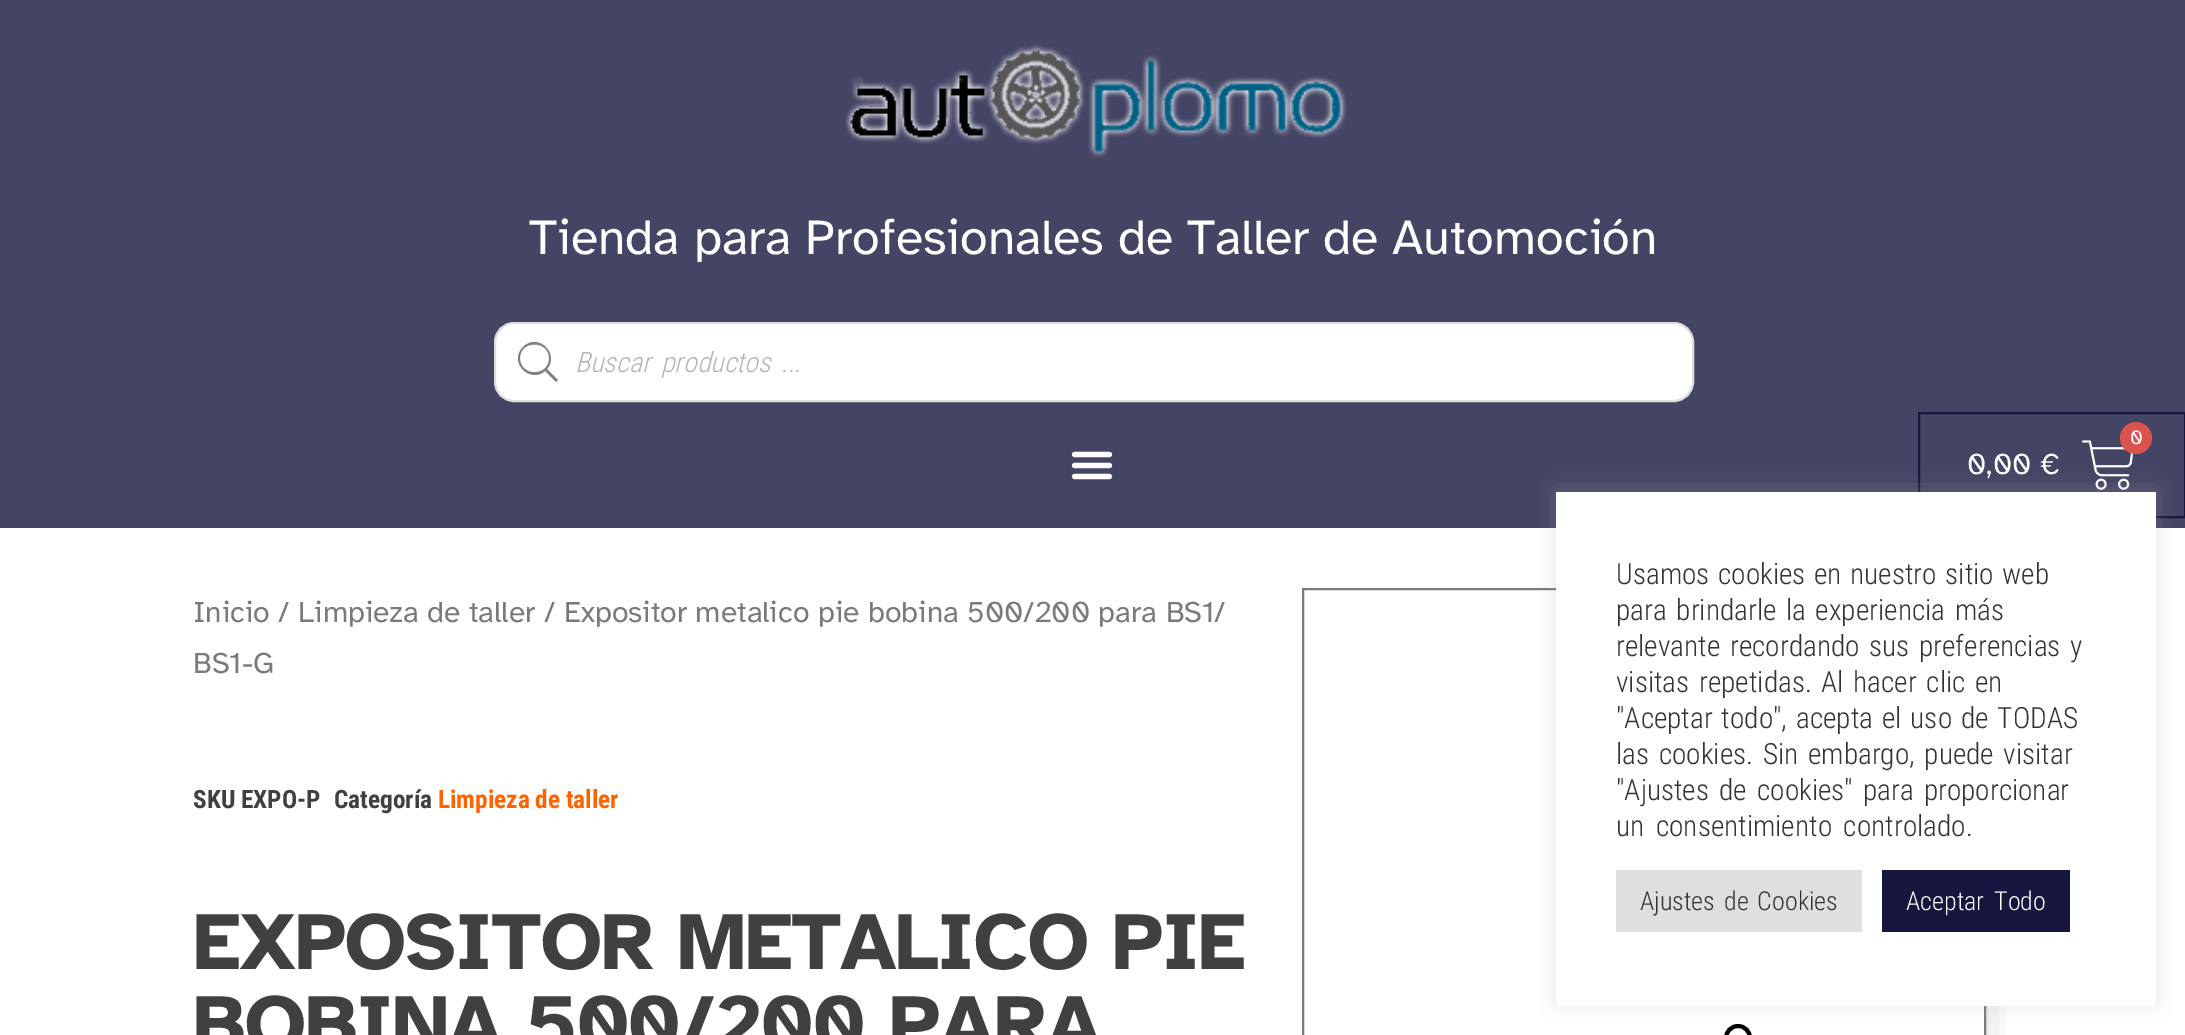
%!PS-Adobe-3.0
%%BoundingBox: 0 0 2185 1035
%%LanguageLevel: 3
%%Pages: 1
%%EndComments
%%BeginProlog
/setink { dup -16 bitshift 255 div exch dup -8 bitshift 255 and 255 div exch 255 and 255 div setrgbcolor } def
/usefont { [ exch dup neg 0 0 3 -1 roll 0 0 ] selectfont } def
/setalpha { dup .setfillconstantalpha .setstrokeconstantalpha } def
/disc { newpath 0 360 arc closepath } def
/rrect { 5 dict begin { /r /h /w /y /x } { exch def } forall
  x r add y moveto x w add y 2 copy h add r arct x w add y h add x 1 index r arct
  x y h add x y r arct x y 2 copy exch w add exch r arct closepath end } def
/softshadow { 12 dict begin { /a /b /q /h /w /y /x } { exch def } forall gsave /was 0 def
  9 -2 -9 { dup b mul 4 div /e exch def 1 sub .425 mul 2.718 exch exp 1 add a .99 .min exch div /now exch def
    1 1 now sub 1 was sub div sub setalpha /was now def
    w h .min e 2 mul add 0 gt { x e sub y e sub w e 2 mul add h e 2 mul add
      q e add b .6 mul add w h .min 2 div e add .min 0 .max rrect fill } if } for grestore end } def
/drawimage { 5 dict begin { /h /w /y /x /name } { exch def } forall
  gsave x y translate w h scale
  w h 8 [w 0 0 h 0 0] name (r) file false 3 colorimage grestore end } def
%%EndProlog
%%BeginSetup
<< /PageSize [2185 1035] /PageUsesTransparency true >> setpagedevice
%%EndSetup
%%Page: 1 1
0 .pushpdf14devicefilter
0 1035 translate 1 -1 scale
4 setmiterlimit
16#FFFFFF setink
0 0 2185 1035 rectfill
16#444465 setink
0 0 2185 528 rectfill
(img1.raw) 845 44 502 114 drawimage
/AtkinsonHyperlegible-Regular 50 usefont
16#FFFFFF setink
529 254 moveto (Tienda para Profesionales de Taller de Automoción) show
16#16163F setink
2 setlinewidth
1919 413 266 104 rectstroke
(img2.raw) 2082 440 52 50 drawimage
16#D9534F setink
2136 438 16 disc fill
/AtkinsonHyperlegible-Regular 20 usefont
16#FFFFFF setink
2130 444 moveto (0) show
/AtkinsonHyperlegible-Regular 30 usefont
1967 474 moveto (0,00 €) show
495 323 1198 78 19 rrect gsave fill grestore
16#DDDDDD setink
stroke
16#808080 setink
558 380 moveto 547 369 lineto 560 354 538 332 523 347 curveto 508 362 530 384 545 371 curveto 556 382 lineto closepath 520 358 moveto 520 340 549 340 549 358 curveto 549 377 520 377 520 358 curveto closepath fill
/RobotoCondensed-LightItalic 28 usefont
16#B3B3B3 setink
575 372 moveto 4 0 32 (Buscar productos ...) widthshow
(img3.raw) 1071 451 42 29 drawimage
/AtkinsonHyperlegible-Regular 30 usefont
16#7A7A7A setink
[
    [(Inicio) 193 622]
    [(/) 278 622]
    [(Limpieza de taller) 298 622]
    [(/ Expositor metalico pie bobina 500/200 para BS1/) 544 622]
    [(BS1-G) 193 673]
] { aload pop moveto show } forall
/RobotoCondensed-Bold 25.25 usefont
16#404040 setink
193 808 moveto (SKU EXPO-P) show
334 808 moveto (Categoría) show
16#FF6300 setink
438 808 moveto (Limpieza de taller) show
/AtkinsonHyperlegible-Bold 82 usefont
16#404040 setink
193 969 moveto -1.6 0 (EXPOSITOR METALICO PIE) ashow
193 1051 moveto -1.6 0 (BOBINA 500/200 PARA) ashow
gsave
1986 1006 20 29 rectclip
16#000000 setink
1344 630 640 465 0 20 0.15 softshadow
grestore
16#7A7A7A setink
1303 589 682 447 rectstroke
16#000000 setink
4 setlinewidth
1738 1038 12 disc stroke
16#ACABAB setink
1556 490 600 514 0 10 0.3 softshadow
16#FFFFFF setink
1556 492 600 514 rectfill
/RobotoCondensed-Light 29.3 usefont
16#333333 setink
1616 584 moveto 2 0 32 (Usamos cookies en nuestro sitio web) widthshow
1616 620 moveto 3 0 32 (para brindarle la experiencia más) widthshow
1616 656 moveto 3 0 32 (relevante recordando sus preferencias y) widthshow
1616 692 moveto 3 0 32 (visitas repetidas. Al hacer clic en) widthshow
1616 728 moveto 2.25 0 32 ("Aceptar todo", acepta el uso de TODAS) widthshow
1616 764 moveto 3 0 32 (las cookies. Sin embargo, puede visitar) widthshow
1616 800 moveto 3.5 0 32 ("Ajustes de cookies" para proporcionar) widthshow
1616 836 moveto 5 0 32 (un consentimiento controlado.) widthshow
16#DEDFE0 setink
1616 870 246 62 rectfill
/RobotoCondensed-Light 26 usefont
16#333333 setink
1640 910 moveto 3 0 32 (Ajustes de Cookies) widthshow
16#16163F setink
1882 870 188 62 rectfill
16#FFFFFF setink
1906 910 moveto 4 0 32 (Aceptar Todo) widthshow
.poppdf14devicefilter showpage
%%EOF
